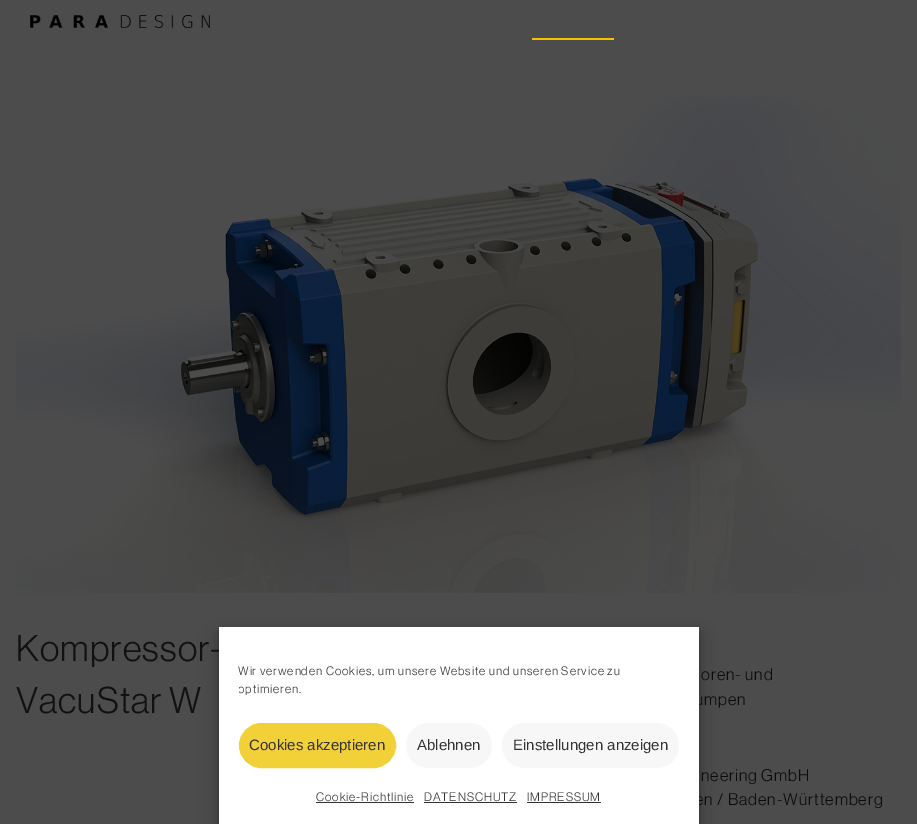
%!PS-Adobe-3.0
%%BoundingBox: 0 0 917 824
%%LanguageLevel: 3
%%Pages: 1
%%EndComments
%%BeginProlog
/setink { dup -16 bitshift 255 div exch dup -8 bitshift 255 and 255 div exch 255 and 255 div setrgbcolor } def
/usefont { [ exch dup neg 0 0 3 -1 roll 0 0 ] selectfont } def
/setalpha { dup .setfillconstantalpha .setstrokeconstantalpha } def
/rrect { 5 dict begin { /r /h /w /y /x } { exch def } forall
  x r add y moveto x w add y 2 copy h add r arct x w add y h add x 1 index r arct
  x y h add x y r arct x y 2 copy exch w add exch r arct closepath end } def
/softshadow { 12 dict begin { /a /b /q /h /w /y /x } { exch def } forall gsave /was 0 def
  9 -2 -9 { dup b mul 4 div /e exch def 1 sub .425 mul 2.718 exch exp 1 add a .99 .min exch div /now exch def
    1 1 now sub 1 was sub div sub setalpha /was now def
    w h .min e 2 mul add 0 gt { x e sub y e sub w e 2 mul add h e 2 mul add
      q e add b .6 mul add w h .min 2 div e add .min 0 .max rrect fill } if } for grestore end } def
/drawimage { 5 dict begin { /h /w /y /x /name } { exch def } forall
  gsave x y translate w h scale
  w h 8 [w 0 0 h 0 0] name (r) file false 3 colorimage grestore end } def
%%EndProlog
%%BeginSetup
<< /PageSize [917 824] /PageUsesTransparency true >> setpagedevice
%%EndSetup
%%Page: 1 1
0 .pushpdf14devicefilter
0 824 translate 1 -1 scale
4 setmiterlimit
16#4C4C4C setink
0 0 917 824 rectfill
(img1.raw) 30 15 180 13 drawimage
16#F7C100 setink
532 38 82 2 rectfill
(img2.raw) 16 96 885 497 drawimage
/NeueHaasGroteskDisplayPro-Regular 36.5 usefont
16#111111 setink
16 661 moveto 1.1 0 (Kompressor-) ashow
16 713 moveto 1.1 0 (VacuStar W) ashow
/NeueHaasGroteskDisplayPro-Regular 16.6 usefont
16#0B0B0B setink
701 680 moveto 0.95 0 (oren- und) ashow
695 705 moveto 0.95 0 (umpen) ashow
701 781 moveto 0.95 0 (neering GmbH) ashow
695 805 moveto 0.95 0 (en / Baden-Württemberg) ashow
16#000000 setink
219 633 480 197 0 3 0.23 softshadow
219 637 480 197 0 10 0.19 softshadow
16#FFFFFF setink
219 627 480 197 rectfill
/NeueHaasGroteskDisplayPro-Regular 12 usefont
16#333333 setink
238 675 moveto 0.95 0 (Wir verwenden Cookies, um unsere Website und unseren Service zu) ashow
gsave
239 662 440 41 rectclip
238 693 moveto 0.95 0 (optimieren.) ashow
grestore
16#F2D037 setink
239.5 723.5 156 44 22 rrect gsave fill grestore
stroke
/LiberationSans-Regular 15 usefont
16#333333 setink
249 750 moveto (Cookies akzeptieren) show
16#F7F7F7 setink
406 723 86 45 22.5 rrect fill
16#333333 setink
417 750 moveto (Ablehnen) show
16#F7F7F7 setink
502 723 177 45 22.5 rrect fill
16#333333 setink
513 750 moveto (Einstellungen anzeigen) show
/NeueHaasGroteskDisplayPro-Regular 12 usefont
316 801 moveto 0.95 0 (Cookie-Richtlinie) ashow
316 802 98 1 rectfill
424 801 moveto 0.95 0 (DATENSCHUTZ) ashow
424 802 93 1 rectfill
527 801 moveto 0.95 0 (IMPRESSUM) ashow
527 802 74 1 rectfill
.poppdf14devicefilter showpage
%%EOF
